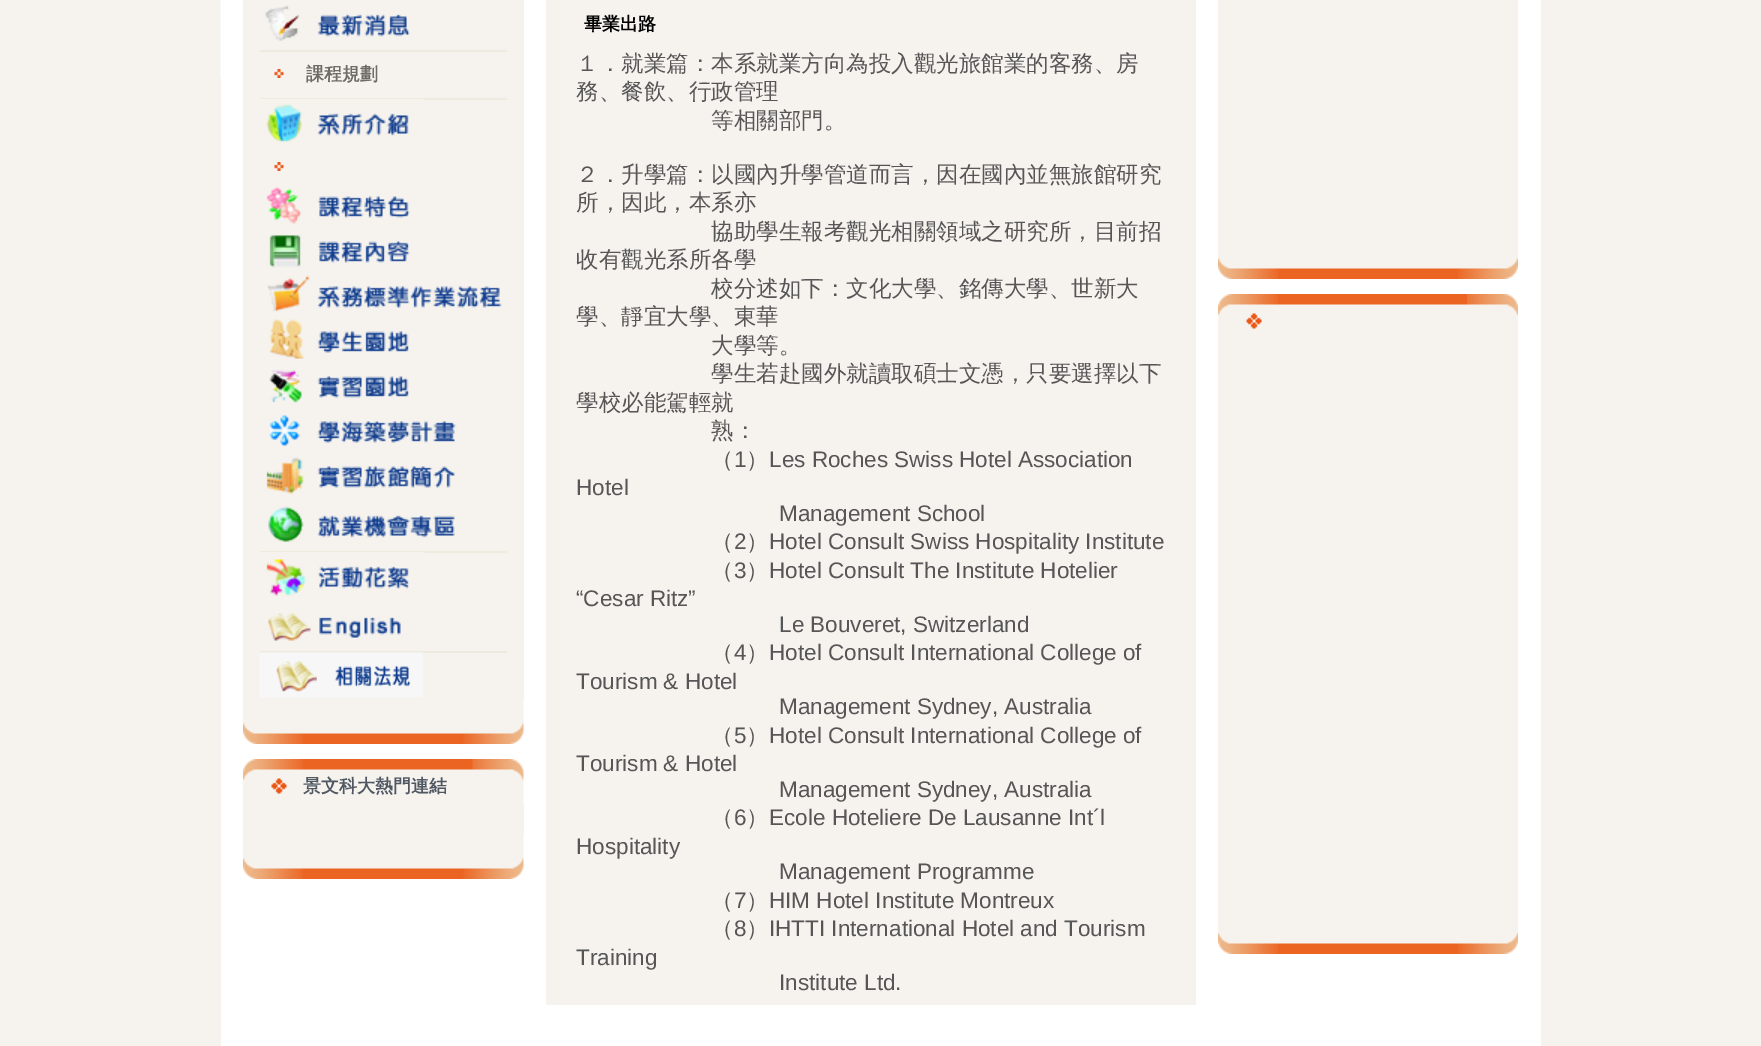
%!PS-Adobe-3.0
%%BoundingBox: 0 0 1761 1046
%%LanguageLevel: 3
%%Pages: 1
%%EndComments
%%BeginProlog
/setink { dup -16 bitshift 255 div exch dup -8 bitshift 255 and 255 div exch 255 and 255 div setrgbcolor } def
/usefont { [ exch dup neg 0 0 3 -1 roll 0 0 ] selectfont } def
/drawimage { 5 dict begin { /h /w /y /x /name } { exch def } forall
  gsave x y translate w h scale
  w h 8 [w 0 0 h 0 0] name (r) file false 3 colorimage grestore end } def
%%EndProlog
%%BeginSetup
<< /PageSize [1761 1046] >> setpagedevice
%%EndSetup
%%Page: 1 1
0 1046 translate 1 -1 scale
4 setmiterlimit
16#F6F3EE setink
0 0 1761 1046 rectfill
16#FFFFFF setink
221 0 1320 1046 rectfill
(img1.raw) 220 0 1 78 drawimage
16#F6F3EE setink
243 0 281 699 rectfill
16#EEEADE setink
260 50 247 2 rectfill
(img2.raw) 265 5 145 36 drawimage
(img3.raw) 274 69 10 9 drawimage
260 98 247 2 rectfill
/WenQuanYiZenHei-Bold 18 usefont
16#6F6B68 setink
306 80 moveto (課程規劃) show
(img4.raw) 260 99 163 43 drawimage
(img3.raw) 274 162 10 9 drawimage
(img5.raw) 266 187 144 37 drawimage
(img6.raw) 269 235 141 33 drawimage
(img7.raw) 267 275 235 37 drawimage
(img8.raw) 269 319 140 40 drawimage
(img9.raw) 269 370 140 33 drawimage
(img10.raw) 269 415 188 31 drawimage
(img11.raw) 266 457 189 38 drawimage
16#EEEADE setink
260 551 247 2 rectfill
(img12.raw) 268 506 187 36 drawimage
(img13.raw) 260 552 163 44 drawimage
260 651 247 2 rectfill
(img14.raw) 268 613 133 28 drawimage
(img15.raw) 259 652 164 46 drawimage
(img16.raw) 243 699 60 45 drawimage
(img17.raw) 463 699 61 45 drawimage
(img18.raw) 303 699 161 45 drawimage
(img19.raw) 243 759 60 45 drawimage
(img20.raw) 472 759 52 45 drawimage
(img21.raw) 303 759 170 45 drawimage
16#4E5762 setink
303 792 moveto (景文科大熱門連結) show
16#F6F3EE setink
243 804 281 30 rectfill
(img16.raw) 243 834 60 45 drawimage
(img17.raw) 463 834 61 45 drawimage
(img18.raw) 303 834 161 45 drawimage
546 0 650 1005 rectfill
16#000000 setink
584 30 moveto (畢業出路) show
/WenQuanYiZenHei-Medium 22.5 usefont
16#575656 setink
[
    [(１．就業篇：本系就業方向為投入觀光旅館業的客務、房) 576 71]
    [(務、餐飲、行政管理) 576 99]
    [(等相關部門。) 711 128]
    [(２．升學篇：以國內升學管道而言，因在國內並無旅館研究) 576 182]
    [(所，因此，本系亦) 576 210]
    [(協助學生報考觀光相關領域之研究所，目前招) 711 239]
    [(收有觀光系所各學) 576 267]
    [(校分述如下：文化大學、銘傳大學、世新大) 711 296]
    [(學、靜宜大學、東華) 576 324]
    [(大學等。) 711 353]
    [(學生若赴國外就讀取碩士文憑，只要選擇以下) 711 381]
    [(學校必能駕輕就) 576 410]
    [(熟：) 711 438]
    [(（) 711 467]
] { aload pop moveto show } forall
/LiberationSans-Regular 22.5 usefont
734 467 moveto (1) show
/WenQuanYiZenHei-Medium 22.5 usefont
746 467 moveto (）) show
/LiberationSans-Regular 22.5 usefont
[
    [(Les Roches Swiss Hotel Association) 769 467]
    [(Hotel) 576 495]
    [(Management School) 779 521]
] { aload pop moveto show } forall
/WenQuanYiZenHei-Medium 22.5 usefont
711 549 moveto (（) show
/LiberationSans-Regular 22.5 usefont
734 549 moveto (2) show
/WenQuanYiZenHei-Medium 22.5 usefont
746 549 moveto (）) show
/LiberationSans-Regular 22.5 usefont
769 549 moveto (Hotel Consult Swiss Hospitality Institute) show
/WenQuanYiZenHei-Medium 22.5 usefont
711 578 moveto (（) show
/LiberationSans-Regular 22.5 usefont
734 578 moveto (3) show
/WenQuanYiZenHei-Medium 22.5 usefont
746 578 moveto (）) show
/LiberationSans-Regular 22.5 usefont
[
    [(Hotel Consult The Institute Hotelier) 769 578]
    [(“Cesar Ritz”) 576 606]
    [(Le Bouveret, Switzerland) 779 632]
] { aload pop moveto show } forall
/WenQuanYiZenHei-Medium 22.5 usefont
711 660 moveto (（) show
/LiberationSans-Regular 22.5 usefont
734 660 moveto (4) show
/WenQuanYiZenHei-Medium 22.5 usefont
746 660 moveto (）) show
/LiberationSans-Regular 22.5 usefont
[
    [(Hotel Consult International College of) 769 660]
    [(Tourism & Hotel) 576 689]
    [(Management Sydney, Australia) 779 714]
] { aload pop moveto show } forall
/WenQuanYiZenHei-Medium 22.5 usefont
711 743 moveto (（) show
/LiberationSans-Regular 22.5 usefont
734 743 moveto (5) show
/WenQuanYiZenHei-Medium 22.5 usefont
746 743 moveto (）) show
/LiberationSans-Regular 22.5 usefont
[
    [(Hotel Consult International College of) 769 743]
    [(Tourism & Hotel) 576 771]
    [(Management Sydney, Australia) 779 797]
] { aload pop moveto show } forall
/WenQuanYiZenHei-Medium 22.5 usefont
711 825 moveto (（) show
/LiberationSans-Regular 22.5 usefont
734 825 moveto (6) show
/WenQuanYiZenHei-Medium 22.5 usefont
746 825 moveto (）) show
/LiberationSans-Regular 22.5 usefont
[
    [(Ecole Hoteliere De Lausanne Int´l) 769 825]
    [(Hospitality) 576 854]
    [(Management Programme) 779 879]
] { aload pop moveto show } forall
/WenQuanYiZenHei-Medium 22.5 usefont
711 908 moveto (（) show
/LiberationSans-Regular 22.5 usefont
734 908 moveto (7) show
/WenQuanYiZenHei-Medium 22.5 usefont
746 908 moveto (）) show
/LiberationSans-Regular 22.5 usefont
769 908 moveto (HIM Hotel Institute Montreux) show
/WenQuanYiZenHei-Medium 22.5 usefont
711 936 moveto (（) show
/LiberationSans-Regular 22.5 usefont
734 936 moveto (8) show
/WenQuanYiZenHei-Medium 22.5 usefont
746 936 moveto (）) show
/LiberationSans-Regular 22.5 usefont
[
    [(IHTTI International Hotel and Tourism) 769 936]
    [(Training) 576 965]
    [(Institute Ltd.) 779 990]
] { aload pop moveto show } forall
16#F6F3EE setink
1218 0 300 234 rectfill
(img22.raw) 1218 234 60 45 drawimage
(img23.raw) 1458 234 60 45 drawimage
(img24.raw) 1278 234 180 45 drawimage
(img25.raw) 1218 294 60 45 drawimage
(img26.raw) 1467 294 51 45 drawimage
(img27.raw) 1278 294 189 45 drawimage
1218 339 300 570 rectfill
(img22.raw) 1218 909 60 45 drawimage
(img23.raw) 1458 909 60 45 drawimage
(img24.raw) 1278 909 180 45 drawimage
showpage
%%EOF
